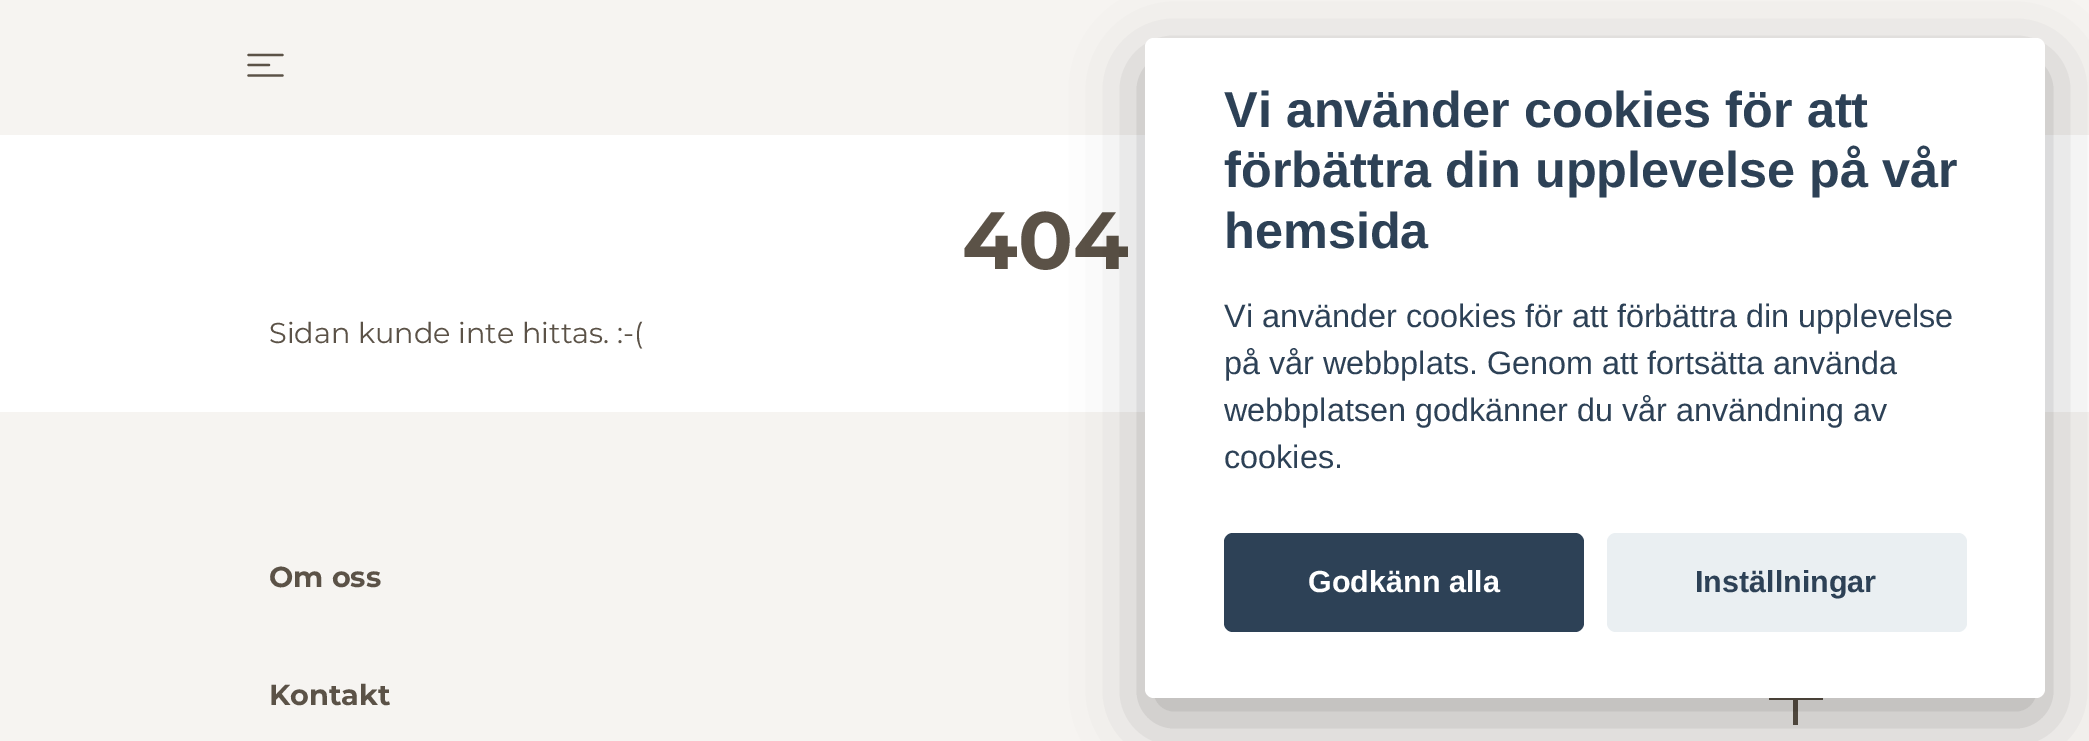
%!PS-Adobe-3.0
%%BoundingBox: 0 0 2089 741
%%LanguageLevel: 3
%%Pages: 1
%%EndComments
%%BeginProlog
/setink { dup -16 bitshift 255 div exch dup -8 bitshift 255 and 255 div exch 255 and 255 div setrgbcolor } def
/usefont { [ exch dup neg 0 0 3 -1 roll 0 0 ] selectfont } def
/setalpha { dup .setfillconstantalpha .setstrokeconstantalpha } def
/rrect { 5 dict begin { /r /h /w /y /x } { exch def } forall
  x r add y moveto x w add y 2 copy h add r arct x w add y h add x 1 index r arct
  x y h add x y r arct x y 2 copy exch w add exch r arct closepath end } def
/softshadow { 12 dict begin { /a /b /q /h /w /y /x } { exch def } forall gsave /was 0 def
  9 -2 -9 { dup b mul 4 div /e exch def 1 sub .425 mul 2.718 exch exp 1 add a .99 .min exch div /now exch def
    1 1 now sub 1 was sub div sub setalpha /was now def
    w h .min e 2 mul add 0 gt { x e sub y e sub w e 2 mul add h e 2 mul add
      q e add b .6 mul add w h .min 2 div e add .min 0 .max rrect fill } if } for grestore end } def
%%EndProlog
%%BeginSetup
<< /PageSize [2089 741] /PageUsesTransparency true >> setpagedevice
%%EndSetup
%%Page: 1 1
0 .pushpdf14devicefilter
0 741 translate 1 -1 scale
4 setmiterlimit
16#FFFFFF setink
0 0 2089 741 rectfill
16#F6F4F1 setink
0 0 2089 135 rectfill
16#5B5247 setink
2.2 setlinewidth
1 setlinecap
1 setlinejoin
248.5 55 moveto 282.5 55 lineto 248.5 65 moveto 269 65 lineto 248.5 75.5 moveto 282.5 75.5 lineto stroke
/Montserrat-Bold 81 usefont
962 269 moveto (404) show
/Montserrat-Regular 28.75 usefont
269 343 moveto (Sidan kunde inte hittas. :-\() show
[
    [0 412 2089 329 16#F6F4F1]
    [1769 698 54 2 16#5B5247]
    [1793 700 5 25 16#5B5247]
] { aload pop setink rectfill } forall
16#020203 setink
1145 61 900 659 9 34 0.28 softshadow
16#FFFFFF setink
1145 38 900 660 9 rrect fill
/LiberationSans-Bold 50.4 usefont
16#2D4156 setink
[
    [(Vi använder cookies för att) 1224 127]
    [(förbättra din upplevelse på vår) 1224 187]
    [(hemsida) 1224 248]
] { aload pop moveto show } forall
/LiberationSans-Regular 32.4 usefont
[
    [(Vi använder cookies för att förbättra din upplevelse) 1224 327]
    [(på vår webbplats. Genom att fortsätta använda) 1224 374]
    [(webbplatsen godkänner du vår användning av) 1224 421]
    [(cookies.) 1224 468]
] { aload pop moveto show } forall
1224 533 360 99 9 rrect fill
/LiberationSans-Bold 30.5 usefont
16#FFFFFF setink
1308 592 moveto (Godkänn alla) show
16#EAEFF2 setink
1607 533 360 99 9 rrect fill
16#2D4156 setink
1695 592 moveto (Inställningar) show
/Montserrat-Bold 28.75 usefont
16#5B5247 setink
269 587 moveto (Om oss) show
269 705 moveto (Kontakt) show
.poppdf14devicefilter showpage
%%EOF
